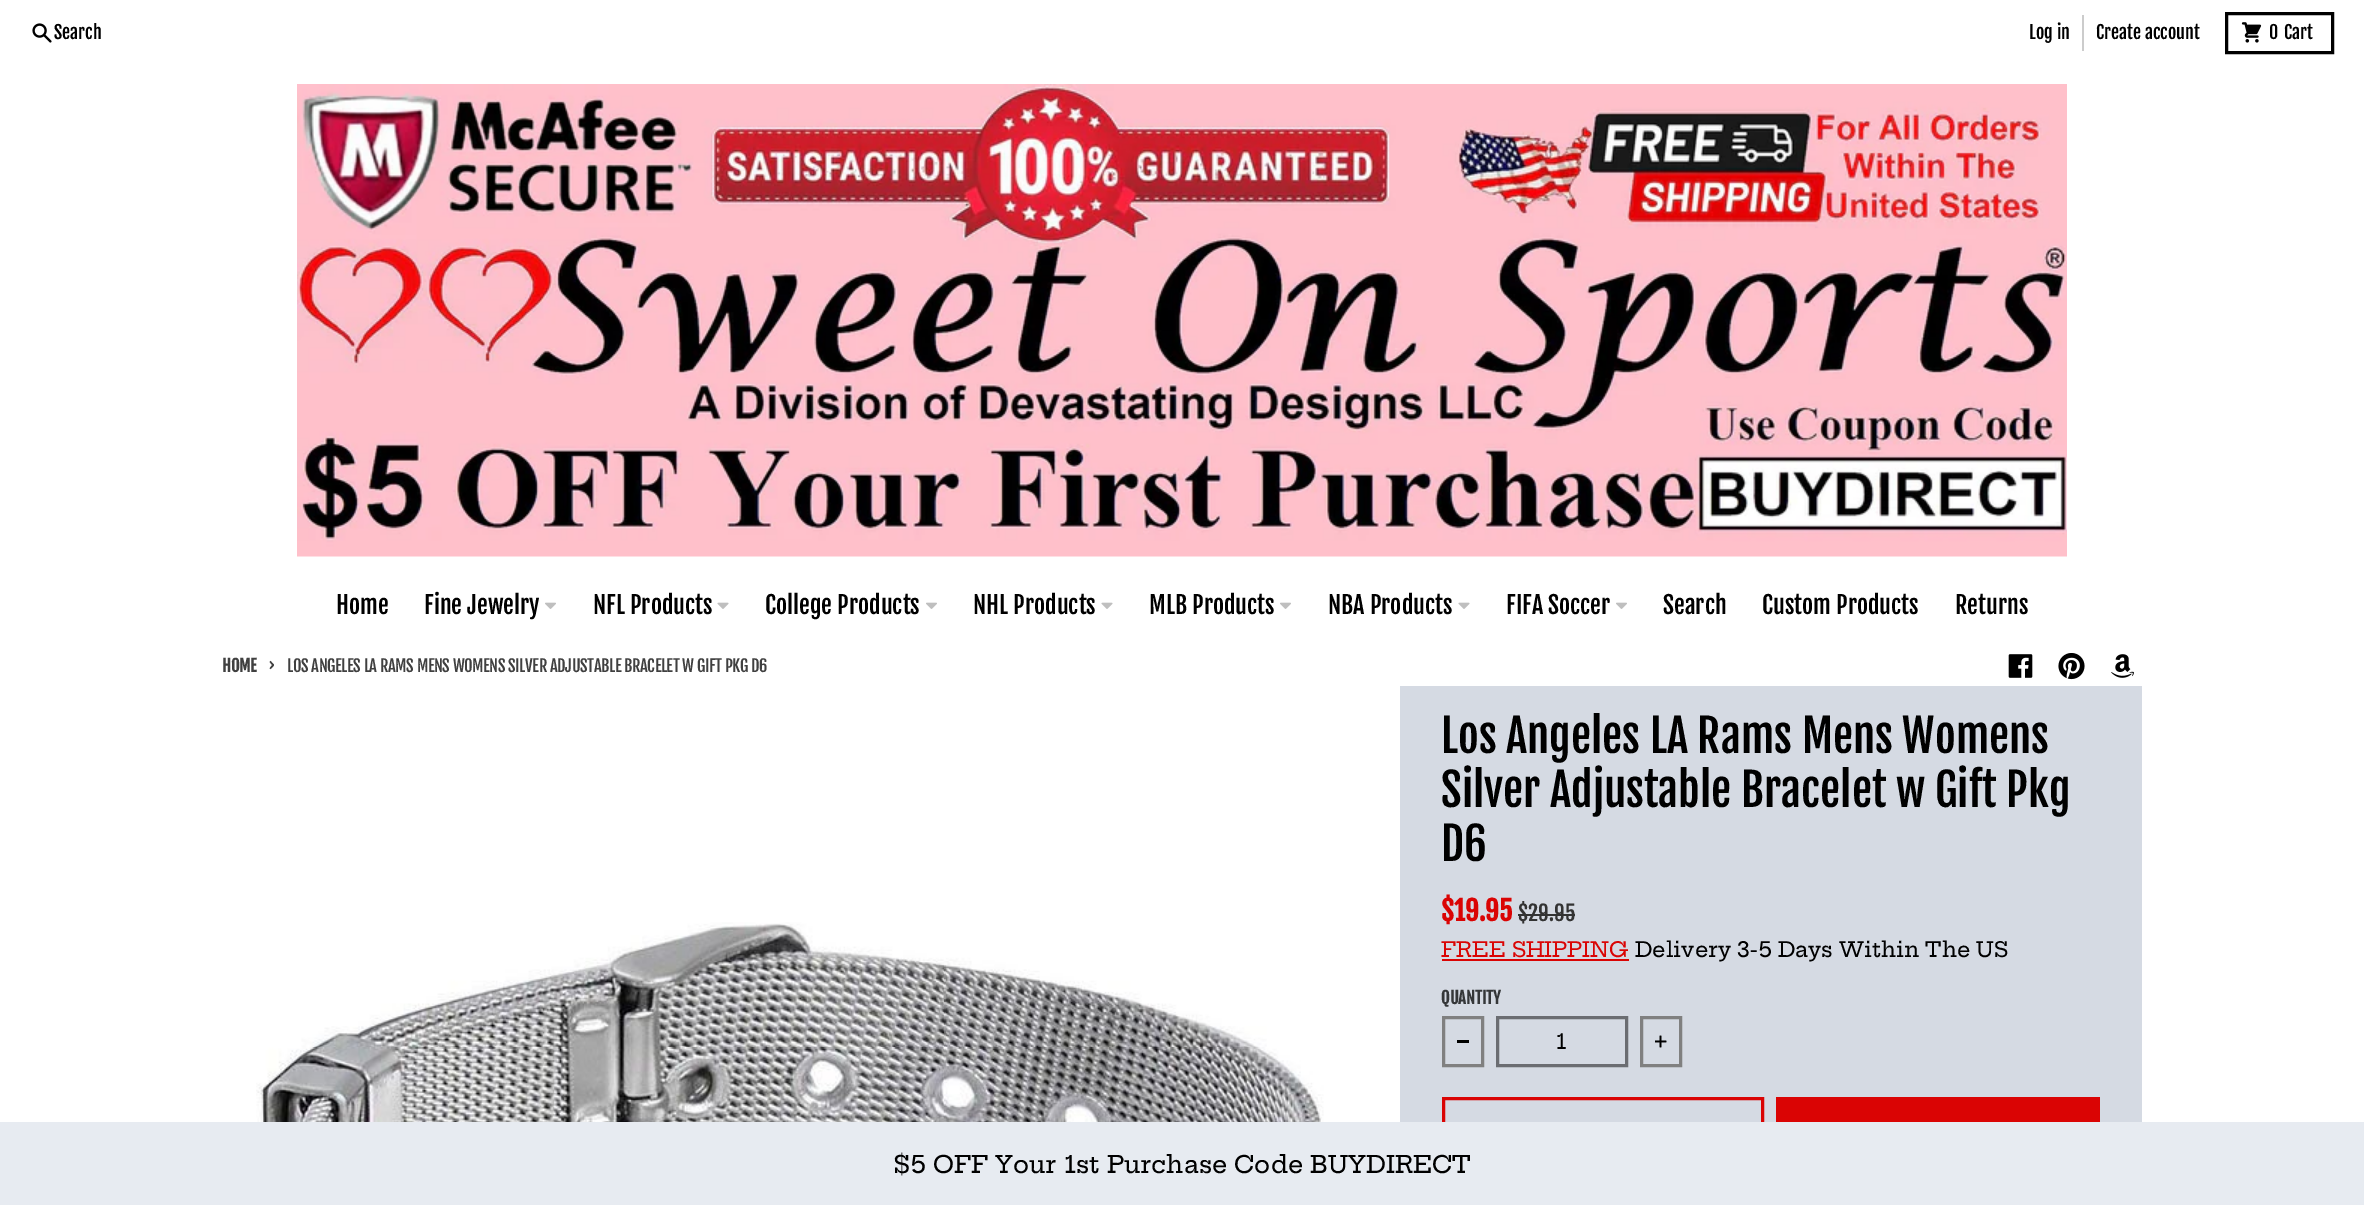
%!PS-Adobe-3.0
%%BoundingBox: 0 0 2364 1205
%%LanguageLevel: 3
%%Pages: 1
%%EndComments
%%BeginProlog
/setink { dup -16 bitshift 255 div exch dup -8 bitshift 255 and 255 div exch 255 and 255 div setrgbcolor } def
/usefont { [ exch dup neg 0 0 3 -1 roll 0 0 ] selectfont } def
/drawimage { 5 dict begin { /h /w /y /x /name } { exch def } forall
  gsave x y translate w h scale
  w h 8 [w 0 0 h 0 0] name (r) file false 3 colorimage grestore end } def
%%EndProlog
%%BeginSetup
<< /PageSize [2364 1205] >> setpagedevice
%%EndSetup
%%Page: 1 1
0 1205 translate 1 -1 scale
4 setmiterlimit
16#FFFFFF setink
0 0 2364 1205 rectfill
(img1.raw) 32 23 20 20 drawimage
/FjallaOne-Regular 18 usefont
16#000000 setink
54 39 moveto (Search) show
2029 39 moveto (Log in) show
16#CCCCCC setink
2082 15 2 36 rectfill
16#000000 setink
2096 39 moveto (Create account) show
3 setlinewidth
2226.5 13.5 106 39 rectstroke
(img2.raw) 2241 22 21 21 drawimage
2269 39 moveto (0) show
2284 39 moveto (Cart) show
(img3.raw) 297 84 1770 473 drawimage
/FjallaOne-Regular 24 usefont
336 614 moveto (Home) show
424 614 moveto (Fine Jewelry) show
(img4.raw) 545 602 11 7 drawimage
593 614 moveto (NFL Products) show
(img5.raw) 717 602 12 7 drawimage
765 614 moveto (College Products) show
(img4.raw) 926 602 11 7 drawimage
973 614 moveto (NHL Products) show
(img5.raw) 1101 602 12 7 drawimage
1149 614 moveto (MLB Products) show
(img4.raw) 1280 602 11 7 drawimage
1328 614 moveto (NBA Products) show
(img5.raw) 1458 602 12 7 drawimage
1506 614 moveto (FIFA Soccer) show
(img4.raw) 1616 602 11 7 drawimage
[
    [(Search) 1663 614]
    [(Custom Products) 1762 614]
    [(Returns) 1955 614]
] { aload pop moveto show } forall
/FjallaOne-Bold 16.5 usefont
16#404040 setink
222 672 moveto -0.4 0 (HOME) ashow
/FjallaOne-Regular 18 usefont
268 672 moveto -0.4 0 (›) ashow
/FjallaOne-Regular 16.5 usefont
287 672 moveto -0.4 0 (LOS ANGELES LA RAMS MENS WOMENS SILVER ADJUSTABLE BRACELET W GIFT PKG D6) ashow
(img6.raw) 2008 654 25 24 drawimage
(img7.raw) 2058 653 27 27 drawimage
(img8.raw) 2111 654 23 24 drawimage
(img9.raw) 256 922 1068 200 drawimage
16#D5DAE3 setink
1400 686 742 436 rectfill
/FjallaOne-Regular 45 usefont
16#000000 setink
[
    [(Los Angeles LA Rams Mens Womens) 1441 753]
    [(Silver Adjustable Bracelet w Gift Pkg) 1441 807]
    [(D6) 1441 861]
] { aload pop moveto show } forall
/FjallaOne-Bold 27 usefont
16#DA0404 setink
1441 921 moveto ($19.95) show
/FjallaOne-Regular 21 usefont
16#333333 setink
1518 921 moveto ($29.95) show
1518 914 57 2 rectfill
/HeptaSlab-Medium 21 usefont
16#DA0404 setink
1441 957 moveto (FREE SHIPPING) show
1442 959 187 2 rectfill
16#000000 setink
1635 957 moveto (Delivery 3-5 Days Within The US) show
/FjallaOne-Bold 16.5 usefont
16#353739 setink
1441 1004 moveto (QUANTITY) show
16#808080 setink
1443.5 1017.5 39 48 rectstroke
16#000000 setink
1457 1040 12 3 rectfill
16#6B6D72 setink
1497.5 1017.5 129 48 rectstroke
/HeptaSlab-Medium 21 usefont
16#000000 setink
1556 1049 moveto (1) show
16#808080 setink
1641.5 1017.5 39 48 rectstroke
(img10.raw) 1655 1035 12 13 drawimage
16#DA0404 setink
1443.5 1098.5 319 66 rectstroke
1776 1097 324 25 rectfill
16#E7EBF1 setink
0 1122 2364 83 rectfill
/HeptaSlab-Medium 24 usefont
16#000000 setink
893 1173 moveto ($5 OFF Your 1st Purchase Code BUYDIRECT) show
showpage
%%EOF
